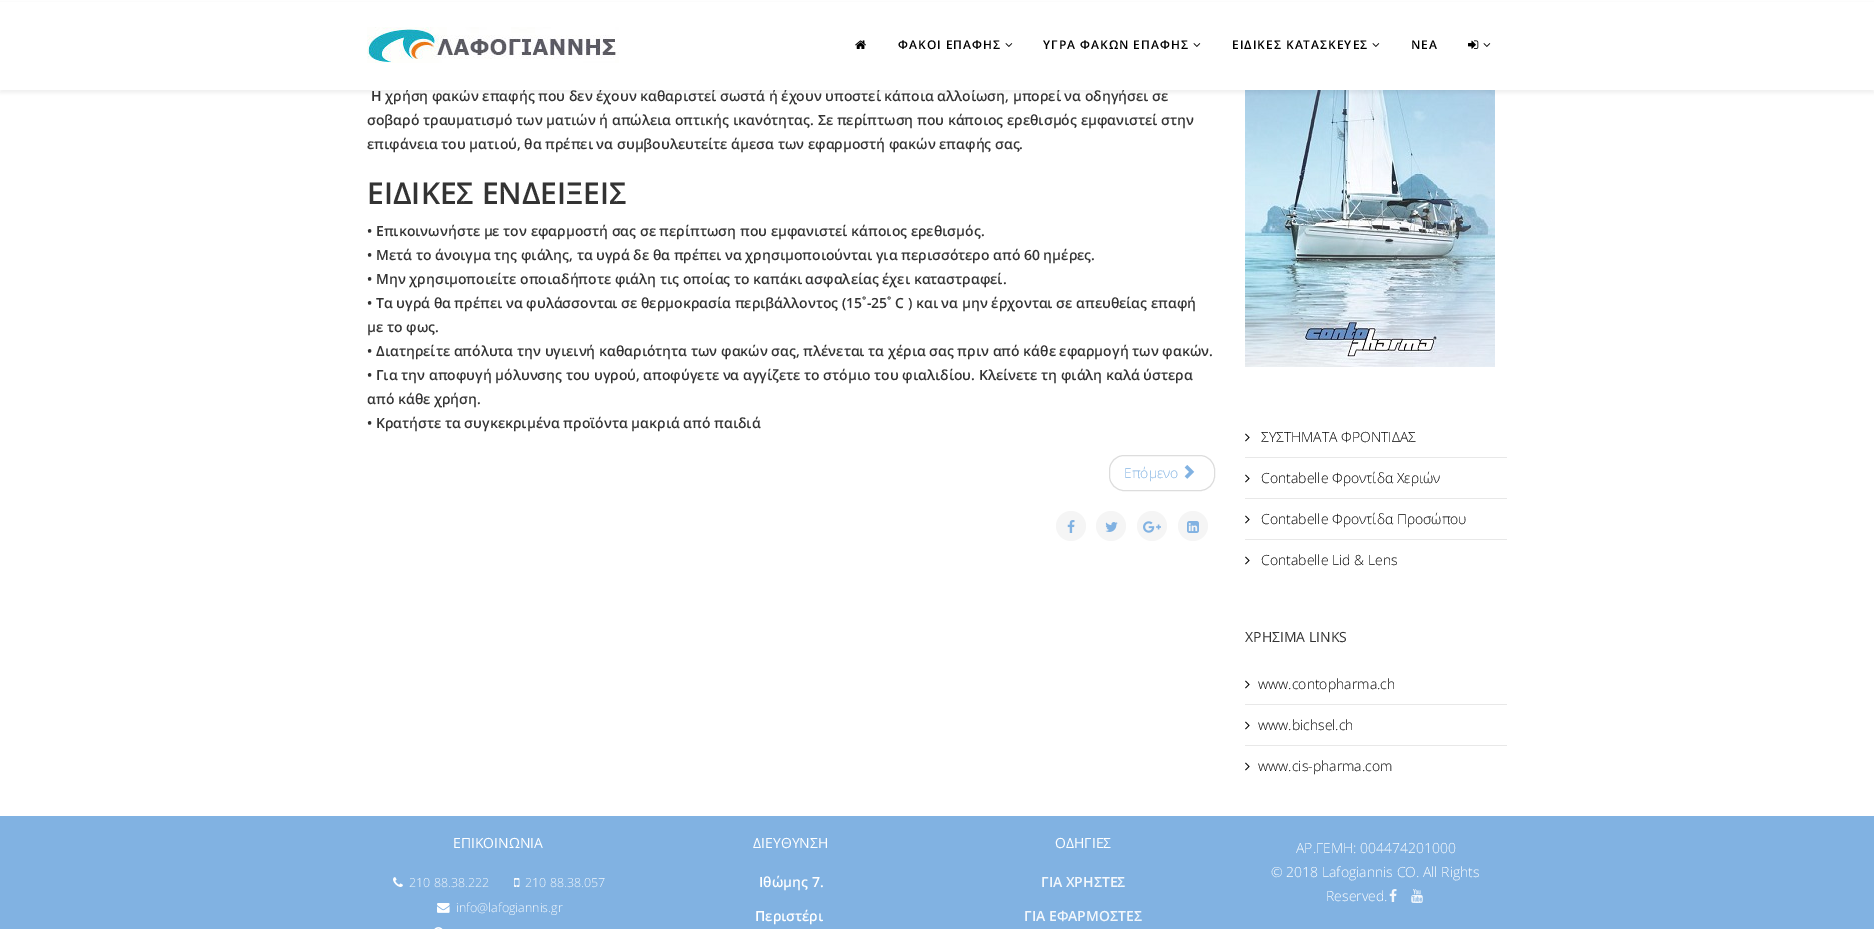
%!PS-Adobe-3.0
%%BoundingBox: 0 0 1874 929
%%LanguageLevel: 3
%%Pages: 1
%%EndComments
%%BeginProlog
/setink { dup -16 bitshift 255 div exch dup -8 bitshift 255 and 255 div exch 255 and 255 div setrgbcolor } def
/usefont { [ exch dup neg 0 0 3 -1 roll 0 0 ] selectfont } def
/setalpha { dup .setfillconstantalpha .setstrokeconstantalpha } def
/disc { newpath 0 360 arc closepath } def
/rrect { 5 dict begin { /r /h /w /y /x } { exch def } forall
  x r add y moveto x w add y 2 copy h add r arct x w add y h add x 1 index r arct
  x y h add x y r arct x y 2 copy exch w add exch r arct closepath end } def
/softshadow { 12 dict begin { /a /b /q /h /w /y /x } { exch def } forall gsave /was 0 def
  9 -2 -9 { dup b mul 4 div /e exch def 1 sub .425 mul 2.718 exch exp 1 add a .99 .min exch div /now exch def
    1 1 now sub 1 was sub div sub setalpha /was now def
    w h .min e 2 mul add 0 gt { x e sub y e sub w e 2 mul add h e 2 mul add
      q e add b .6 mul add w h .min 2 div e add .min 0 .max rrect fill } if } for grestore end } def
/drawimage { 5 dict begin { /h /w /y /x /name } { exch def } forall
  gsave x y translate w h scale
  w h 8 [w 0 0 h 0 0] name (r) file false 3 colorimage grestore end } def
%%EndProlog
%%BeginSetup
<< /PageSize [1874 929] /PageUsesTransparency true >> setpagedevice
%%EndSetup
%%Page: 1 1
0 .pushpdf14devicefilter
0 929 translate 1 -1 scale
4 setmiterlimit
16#FFFFFF setink
0 0 1874 929 rectfill
(img10.raw) 1245 90 250 277 drawimage
16#000000 setink
0 3 1874 90 0 1.5 0.05 softshadow
/OpenSans-SemiBold 14 usefont
16#333333 setink
371 101 moveto (Η χρήση φακών επαφής που δεν έχουν καθαριστεί σωστά ή έχουν υποστεί κάποια αλλοίωση, μπορεί να οδηγήσει σε) show
16#FFFFFF setink
0 2 1874 88 rectfill
(img1.raw) 367 27 252 36 drawimage
(img2.raw) 855 40 11 9 drawimage
/OpenSans-SemiBold 12 usefont
16#000000 setink
898 49 moveto 1 0 (ΦΑΚΟΙ ΕΠΑΦΗΣ) ashow
(img3.raw) 1005 43 8 4 drawimage
1043 49 moveto 1 0 (ΥΓΡΑ ΦΑΚΩΝ ΕΠΑΦΗΣ) ashow
(img3.raw) 1193 43 8 4 drawimage
1232 49 moveto 1 0 (ΕΙΔΙΚΕΣ ΚΑΤΑΣΚΕΥΕΣ) ashow
(img3.raw) 1372 43 8 4 drawimage
1411 49 moveto 1 0 (ΝΕΑ) ashow
(img4.raw) 1468 40 11 9 drawimage
(img3.raw) 1483 43 8 4 drawimage
/OpenSans-SemiBold 14 usefont
16#333333 setink
367 125 moveto (σοβαρό τραυματισμό των ματιών ή απώλεια οπτικής ικανότητας. Σε περίπτωση που κάποιος ερεθισμός εμφανιστεί στην) show
367 149 moveto (επιφάνεια του ματιού, θα πρέπει να συμβουλευτείτε άμεσα των εφαρμοστή φακών επαφής σας.) show
/OpenSans-SemiBold 30 usefont
367 204 moveto (ΕΙΔΙΚΕΣ ΕΝΔΕΙΞΕΙΣ) show
/OpenSans-SemiBold 14 usefont
[
    [(• Επικοινωνήστε με τον εφαρμοστή σας σε περίπτωση που εμφανιστεί κάποιος ερεθισμός.) 367 236]
    [(• Μετά το άνοιγμα της φιάλης, τα υγρά δε θα πρέπει να χρησιμοποιούνται για περισσότερο από 60 ημέρες.) 367 260]
    [(• Μην χρησιμοποιείτε οποιαδήποτε φιάλη τις οποίας το καπάκι ασφαλείας έχει καταστραφεί.) 367 284]
    [(• Τα υγρά θα πρέπει να φυλάσσονται σε θερμοκρασία περιβάλλοντος \(15˚-25˚ C \) και να μην έρχονται σε απευθείας επαφή) 367 308]
    [(με το φως.) 367 332]
    [(• Διατηρείτε απόλυτα την υγιεινή καθαριότητα των φακών σας, πλένεται τα χέρια σας πριν από κάθε εφαρμογή των φακών.) 367 356]
    [(• Για την αποφυγή μόλυνσης του υγρού, αποφύγετε να αγγίζετε το στόμιο του φιαλιδίου. Κλείνετε τη φιάλη καλά ύστερα) 367 380]
    [(από κάθε χρήση.) 367 404]
    [(• Κρατήστε τα συγκεκριμένα προϊόντα μακριά από παιδιά) 367 428]
] { aload pop moveto show } forall
16#DDDDDD setink
1109.5 455.5 105 35 14.5 rrect stroke
/OpenSans-Light 14 usefont
16#81B2E2 setink
1124 478 moveto (Επόμενο) show
(img5.raw) 1184 465 11 14 drawimage
16#F5F5F5 setink
1071 526 15 disc fill
(img6.raw) 1067 520 8 13 drawimage
1111 526 15 disc fill
(img7.raw) 1105 522 13 10 drawimage
1152 526 15 disc fill
(img8.raw) 1143 521 18 12 drawimage
1193 526 15 disc fill
(img9.raw) 1187 521 12 12 drawimage
16#E8E8E8 setink
1245 457 262 1 rectfill
(img11.raw) 1245 433 5 9 drawimage
16#000000 setink
1261 442 moveto (ΣΥΣΤΗΜΑΤΑ ΦΡΟΝΤΙΔΑΣ) show
16#E8E8E8 setink
1245 498 262 1 rectfill
(img11.raw) 1245 474 5 9 drawimage
16#000000 setink
1261 483 moveto (Contabelle Φροντίδα Χεριών) show
16#E8E8E8 setink
1245 539 262 1 rectfill
(img11.raw) 1245 515 5 9 drawimage
16#000000 setink
1261 524 moveto (Contabelle Φροντίδα Προσώπου) show
(img11.raw) 1245 556 5 9 drawimage
1261 565 moveto (Contabelle Lid & Lens) show
/OpenSans-Regular 14 usefont
16#333333 setink
1245 642 moveto (ΧΡΗΣΙΜΑ LINKS) show
16#E8E8E8 setink
1245 704 262 1 rectfill
(img11.raw) 1245 680 5 9 drawimage
/OpenSans-Light 14 usefont
16#000000 setink
1258 689 moveto (www.contopharma.ch) show
16#E8E8E8 setink
1245 745 262 1 rectfill
(img11.raw) 1245 721 5 9 drawimage
16#000000 setink
1258 730 moveto (www.bichsel.ch) show
(img11.raw) 1245 762 5 9 drawimage
1258 771 moveto (www.cis-pharma.com) show
16#81B2E2 setink
0 816 1874 113 rectfill
/OpenSans-Regular 14 usefont
16#FFFFFF setink
453 848 moveto (ΕΠΙΚΟΙΝΩΝΙΑ) show
(img12.raw) 393 877 10 10 drawimage
/OpenSans-Light 12.5 usefont
16#F2F7FC setink
409 887 moveto (210 88.38.222) show
(img13.raw) 514 878 6 9 drawimage
525 887 moveto (210 88.38.057) show
(img14.raw) 437 903 13 10 drawimage
456 912 moveto (info@lafogiannis.gr) show
(img15.raw) 434 927 9 2 drawimage
/OpenSans-Regular 14 usefont
16#FFFFFF setink
753 848 moveto (ΔΙΕΥΘΥΝΣΗ) show
/OpenSans-SemiBold 14 usefont
759 887 moveto (Ιθώμης 7.) show
755 921 moveto (Περιστέρι) show
/OpenSans-Regular 14 usefont
1055 848 moveto (ΟΔΗΓΙΕΣ) show
/OpenSans-SemiBold 14 usefont
16#F2F7FC setink
1041 887 moveto (ΓΙΑ ΧΡΗΣΤΕΣ) show
1024 921 moveto (ΓΙΑ ΕΦΑΡΜΟΣΤΕΣ) show
/OpenSans-Light 14 usefont
16#FFFFFF setink
[
    [(ΑΡ.ΓΕΜΗ: 004474201000) 1296 853]
    [(© 2018 Lafogiannis CO. All Rights) 1271 877]
    [(Reserved.) 1326 901]
] { aload pop moveto show } forall
(img16.raw) 1389 889 8 13 drawimage
(img17.raw) 1411 889 12 14 drawimage
.poppdf14devicefilter showpage
%%EOF
